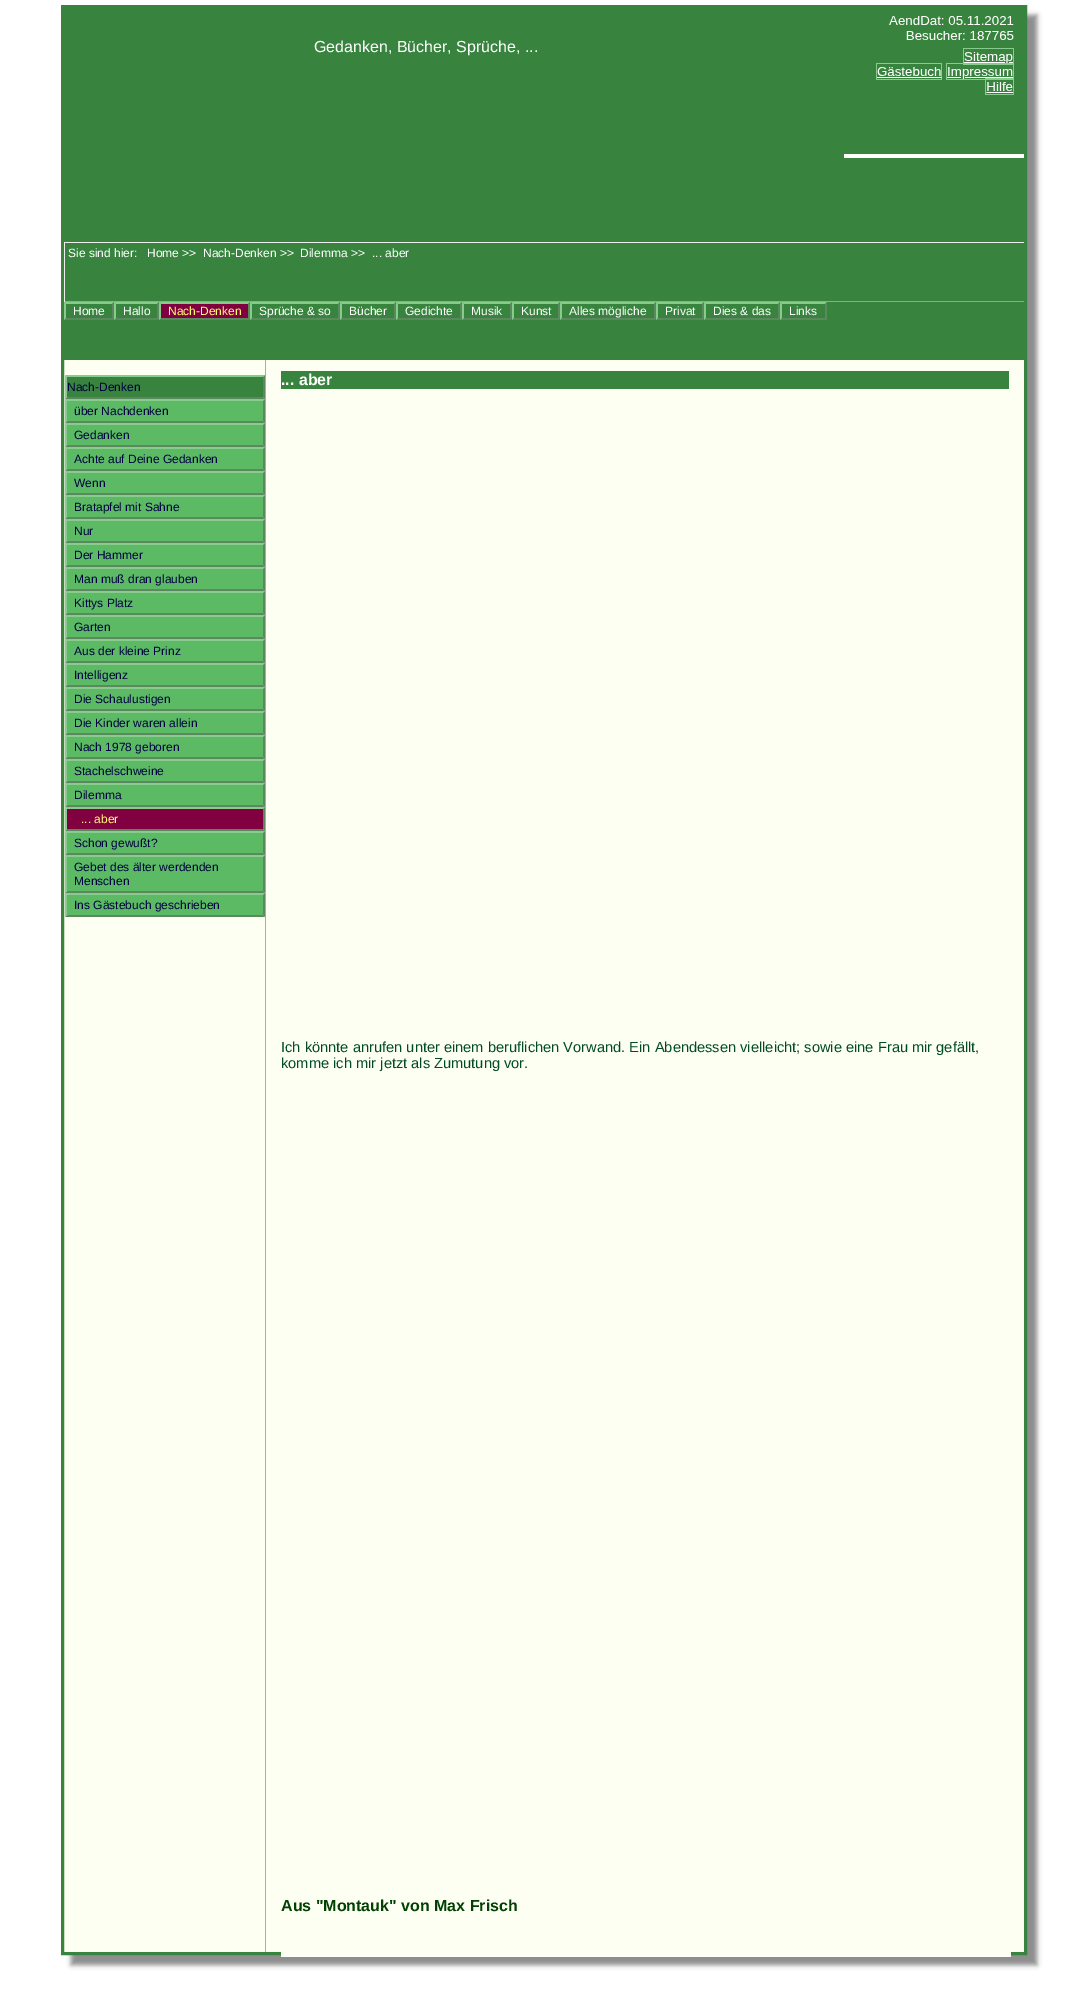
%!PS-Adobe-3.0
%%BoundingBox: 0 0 1087 2003
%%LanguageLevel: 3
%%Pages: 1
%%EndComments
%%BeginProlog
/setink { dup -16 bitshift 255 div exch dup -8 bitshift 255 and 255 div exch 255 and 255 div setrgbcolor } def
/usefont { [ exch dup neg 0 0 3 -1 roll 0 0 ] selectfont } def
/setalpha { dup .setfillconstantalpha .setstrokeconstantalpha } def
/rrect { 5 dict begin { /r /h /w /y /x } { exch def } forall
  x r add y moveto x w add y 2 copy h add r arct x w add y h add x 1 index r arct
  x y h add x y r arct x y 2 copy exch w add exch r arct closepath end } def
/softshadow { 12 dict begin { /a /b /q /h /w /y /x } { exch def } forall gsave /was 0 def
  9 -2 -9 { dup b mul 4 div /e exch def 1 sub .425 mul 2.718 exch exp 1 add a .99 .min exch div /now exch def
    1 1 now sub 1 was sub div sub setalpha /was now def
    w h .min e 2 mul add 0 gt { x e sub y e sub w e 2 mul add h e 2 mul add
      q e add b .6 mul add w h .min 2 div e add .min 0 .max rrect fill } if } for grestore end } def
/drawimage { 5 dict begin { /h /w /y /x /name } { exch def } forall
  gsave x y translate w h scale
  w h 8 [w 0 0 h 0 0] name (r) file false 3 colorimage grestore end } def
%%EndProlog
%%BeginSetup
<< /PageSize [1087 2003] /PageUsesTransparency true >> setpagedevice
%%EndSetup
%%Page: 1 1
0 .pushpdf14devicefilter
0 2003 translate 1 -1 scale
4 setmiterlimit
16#FFFFFF setink
0 0 1087 2003 rectfill
16#8B8B8B setink
71 15 966 1950 0 2.5 1 softshadow
16#FCFFF2 setink
64 360 960 1592 rectfill
16#38833E setink
3 setlinewidth
62.5 6.5 963 1947 rectstroke
64 8 960 234 rectfill
/LiberationSans-Regular 16 usefont
16#FFFFFF setink
314 52 moveto (Gedanken, Bücher, Sprüche, ...) show
(img1.raw) 844 16 180 142 drawimage
[
    [65 243 959 58 16#38833E]
    [64 242 960 1 16#EEEEEE]
    [64 301 960 1 16#9F9F9F]
    [64 242 1 60 16#EEEEEE]
] { aload pop setink rectfill } forall
/LiberationSans-Regular 12 usefont
16#FFFFFF setink
[
    [(Sie sind hier:) 68 257]
    [(Home >>) 147 257]
    [(Nach-Denken >>) 203 257]
    [(Dilemma >>) 300 257]
    [(... aber) 372 257]
] { aload pop moveto show } forall
16#38833E setink
64 302 960 58 rectfill
16#88CC8D setink
64 302 moveto 114 302 lineto 112 304 lineto 66 304 lineto closepath fill
16#5B885E setink
114 302 moveto 114 320 lineto 112 318 lineto 112 304 lineto closepath fill
114 320 moveto 64 320 lineto 66 318 lineto 112 318 lineto closepath fill
16#88CC8D setink
64 320 moveto 64 302 lineto 66 304 lineto 66 318 lineto closepath fill
16#FFFFFF setink
73 315 moveto (Home) show
16#88CC8D setink
114 302 moveto 159 302 lineto 157 304 lineto 116 304 lineto closepath fill
16#5B885E setink
159 302 moveto 159 320 lineto 157 318 lineto 157 304 lineto closepath fill
159 320 moveto 114 320 lineto 116 318 lineto 157 318 lineto closepath fill
16#88CC8D setink
114 320 moveto 114 302 lineto 116 304 lineto 116 318 lineto closepath fill
16#FFFFFF setink
123 315 moveto (Hallo) show
16#88CC8D setink
159 302 moveto 250 302 lineto 248 304 lineto 161 304 lineto closepath fill
16#5B885E setink
250 302 moveto 250 320 lineto 248 318 lineto 248 304 lineto closepath fill
250 320 moveto 159 320 lineto 161 318 lineto 248 318 lineto closepath fill
16#88CC8D setink
159 320 moveto 159 302 lineto 161 304 lineto 161 318 lineto closepath fill
16#800040 setink
161 304 87 14 rectfill
16#FFFF71 setink
168 315 moveto (Nach-Denken) show
16#88CC8D setink
250 302 moveto 340 302 lineto 338 304 lineto 252 304 lineto closepath fill
16#5B885E setink
340 302 moveto 340 320 lineto 338 318 lineto 338 304 lineto closepath fill
340 320 moveto 250 320 lineto 252 318 lineto 338 318 lineto closepath fill
16#88CC8D setink
250 320 moveto 250 302 lineto 252 304 lineto 252 318 lineto closepath fill
16#FFFFFF setink
259 315 moveto (Sprüche & so) show
16#88CC8D setink
340 302 moveto 396 302 lineto 394 304 lineto 342 304 lineto closepath fill
16#5B885E setink
396 302 moveto 396 320 lineto 394 318 lineto 394 304 lineto closepath fill
396 320 moveto 340 320 lineto 342 318 lineto 394 318 lineto closepath fill
16#88CC8D setink
340 320 moveto 340 302 lineto 342 304 lineto 342 318 lineto closepath fill
16#FFFFFF setink
349 315 moveto (Bücher) show
16#88CC8D setink
396 302 moveto 462 302 lineto 460 304 lineto 398 304 lineto closepath fill
16#5B885E setink
462 302 moveto 462 320 lineto 460 318 lineto 460 304 lineto closepath fill
462 320 moveto 396 320 lineto 398 318 lineto 460 318 lineto closepath fill
16#88CC8D setink
396 320 moveto 396 302 lineto 398 304 lineto 398 318 lineto closepath fill
16#FFFFFF setink
405 315 moveto (Gedichte) show
16#88CC8D setink
462 302 moveto 512 302 lineto 510 304 lineto 464 304 lineto closepath fill
16#5B885E setink
512 302 moveto 512 320 lineto 510 318 lineto 510 304 lineto closepath fill
512 320 moveto 462 320 lineto 464 318 lineto 510 318 lineto closepath fill
16#88CC8D setink
462 320 moveto 462 302 lineto 464 304 lineto 464 318 lineto closepath fill
16#FFFFFF setink
471 315 moveto (Musik) show
16#88CC8D setink
512 302 moveto 560 302 lineto 558 304 lineto 514 304 lineto closepath fill
16#5B885E setink
560 302 moveto 560 320 lineto 558 318 lineto 558 304 lineto closepath fill
560 320 moveto 512 320 lineto 514 318 lineto 558 318 lineto closepath fill
16#88CC8D setink
512 320 moveto 512 302 lineto 514 304 lineto 514 318 lineto closepath fill
16#FFFFFF setink
521 315 moveto (Kunst) show
16#88CC8D setink
560 302 moveto 656 302 lineto 654 304 lineto 562 304 lineto closepath fill
16#5B885E setink
656 302 moveto 656 320 lineto 654 318 lineto 654 304 lineto closepath fill
656 320 moveto 560 320 lineto 562 318 lineto 654 318 lineto closepath fill
16#88CC8D setink
560 320 moveto 560 302 lineto 562 304 lineto 562 318 lineto closepath fill
16#FFFFFF setink
569 315 moveto (Alles mögliche) show
16#88CC8D setink
656 302 moveto 704 302 lineto 702 304 lineto 658 304 lineto closepath fill
16#5B885E setink
704 302 moveto 704 320 lineto 702 318 lineto 702 304 lineto closepath fill
704 320 moveto 656 320 lineto 658 318 lineto 702 318 lineto closepath fill
16#88CC8D setink
656 320 moveto 656 302 lineto 658 304 lineto 658 318 lineto closepath fill
16#FFFFFF setink
665 315 moveto (Privat) show
16#88CC8D setink
704 302 moveto 780 302 lineto 778 304 lineto 706 304 lineto closepath fill
16#5B885E setink
780 302 moveto 780 320 lineto 778 318 lineto 778 304 lineto closepath fill
780 320 moveto 704 320 lineto 706 318 lineto 778 318 lineto closepath fill
16#88CC8D setink
704 320 moveto 704 302 lineto 706 304 lineto 706 318 lineto closepath fill
16#FFFFFF setink
713 315 moveto (Dies & das) show
16#88CC8D setink
780 302 moveto 827 302 lineto 825 304 lineto 782 304 lineto closepath fill
16#5B885E setink
827 302 moveto 827 320 lineto 825 318 lineto 825 304 lineto closepath fill
827 320 moveto 780 320 lineto 782 318 lineto 825 318 lineto closepath fill
16#88CC8D setink
780 320 moveto 780 302 lineto 782 304 lineto 782 318 lineto closepath fill
16#FFFFFF setink
789 315 moveto (Links) show
16#7EBEBE setink
265 360 1 1592 rectfill
16#88CC8D setink
65 375 moveto 265 375 lineto 263 377 lineto 67 377 lineto closepath fill
16#5B885E setink
265 375 moveto 265 399 lineto 263 397 lineto 263 377 lineto closepath fill
265 399 moveto 65 399 lineto 67 397 lineto 263 397 lineto closepath fill
16#88CC8D setink
65 399 moveto 65 375 lineto 67 377 lineto 67 397 lineto closepath fill
16#38833E setink
67 377 196 20 rectfill
16#000040 setink
67 391 moveto (Nach-Denken) show
16#88CC8D setink
65 399 moveto 265 399 lineto 263 401 lineto 67 401 lineto closepath fill
16#5B885E setink
265 399 moveto 265 423 lineto 263 421 lineto 263 401 lineto closepath fill
265 423 moveto 65 423 lineto 67 421 lineto 263 421 lineto closepath fill
16#88CC8D setink
65 423 moveto 65 399 lineto 67 401 lineto 67 421 lineto closepath fill
16#5CBA64 setink
67 401 196 20 rectfill
16#000040 setink
74 415 moveto (über Nachdenken) show
16#88CC8D setink
65 423 moveto 265 423 lineto 263 425 lineto 67 425 lineto closepath fill
16#5B885E setink
265 423 moveto 265 447 lineto 263 445 lineto 263 425 lineto closepath fill
265 447 moveto 65 447 lineto 67 445 lineto 263 445 lineto closepath fill
16#88CC8D setink
65 447 moveto 65 423 lineto 67 425 lineto 67 445 lineto closepath fill
16#5CBA64 setink
67 425 196 20 rectfill
16#000040 setink
74 439 moveto (Gedanken) show
16#88CC8D setink
65 447 moveto 265 447 lineto 263 449 lineto 67 449 lineto closepath fill
16#5B885E setink
265 447 moveto 265 471 lineto 263 469 lineto 263 449 lineto closepath fill
265 471 moveto 65 471 lineto 67 469 lineto 263 469 lineto closepath fill
16#88CC8D setink
65 471 moveto 65 447 lineto 67 449 lineto 67 469 lineto closepath fill
16#5CBA64 setink
67 449 196 20 rectfill
16#000040 setink
74 463 moveto (Achte auf Deine Gedanken) show
16#88CC8D setink
65 471 moveto 265 471 lineto 263 473 lineto 67 473 lineto closepath fill
16#5B885E setink
265 471 moveto 265 495 lineto 263 493 lineto 263 473 lineto closepath fill
265 495 moveto 65 495 lineto 67 493 lineto 263 493 lineto closepath fill
16#88CC8D setink
65 495 moveto 65 471 lineto 67 473 lineto 67 493 lineto closepath fill
16#5CBA64 setink
67 473 196 20 rectfill
16#000040 setink
74 487 moveto (Wenn) show
16#88CC8D setink
65 495 moveto 265 495 lineto 263 497 lineto 67 497 lineto closepath fill
16#5B885E setink
265 495 moveto 265 519 lineto 263 517 lineto 263 497 lineto closepath fill
265 519 moveto 65 519 lineto 67 517 lineto 263 517 lineto closepath fill
16#88CC8D setink
65 519 moveto 65 495 lineto 67 497 lineto 67 517 lineto closepath fill
16#5CBA64 setink
67 497 196 20 rectfill
16#000040 setink
74 511 moveto (Bratapfel mit Sahne) show
16#88CC8D setink
65 519 moveto 265 519 lineto 263 521 lineto 67 521 lineto closepath fill
16#5B885E setink
265 519 moveto 265 543 lineto 263 541 lineto 263 521 lineto closepath fill
265 543 moveto 65 543 lineto 67 541 lineto 263 541 lineto closepath fill
16#88CC8D setink
65 543 moveto 65 519 lineto 67 521 lineto 67 541 lineto closepath fill
16#5CBA64 setink
67 521 196 20 rectfill
16#000040 setink
74 535 moveto (Nur) show
16#88CC8D setink
65 543 moveto 265 543 lineto 263 545 lineto 67 545 lineto closepath fill
16#5B885E setink
265 543 moveto 265 567 lineto 263 565 lineto 263 545 lineto closepath fill
265 567 moveto 65 567 lineto 67 565 lineto 263 565 lineto closepath fill
16#88CC8D setink
65 567 moveto 65 543 lineto 67 545 lineto 67 565 lineto closepath fill
16#5CBA64 setink
67 545 196 20 rectfill
16#000040 setink
74 559 moveto (Der Hammer) show
16#88CC8D setink
65 567 moveto 265 567 lineto 263 569 lineto 67 569 lineto closepath fill
16#5B885E setink
265 567 moveto 265 591 lineto 263 589 lineto 263 569 lineto closepath fill
265 591 moveto 65 591 lineto 67 589 lineto 263 589 lineto closepath fill
16#88CC8D setink
65 591 moveto 65 567 lineto 67 569 lineto 67 589 lineto closepath fill
16#5CBA64 setink
67 569 196 20 rectfill
16#000040 setink
74 583 moveto (Man muß dran glauben) show
16#88CC8D setink
65 591 moveto 265 591 lineto 263 593 lineto 67 593 lineto closepath fill
16#5B885E setink
265 591 moveto 265 615 lineto 263 613 lineto 263 593 lineto closepath fill
265 615 moveto 65 615 lineto 67 613 lineto 263 613 lineto closepath fill
16#88CC8D setink
65 615 moveto 65 591 lineto 67 593 lineto 67 613 lineto closepath fill
16#5CBA64 setink
67 593 196 20 rectfill
16#000040 setink
74 607 moveto (Kittys Platz) show
16#88CC8D setink
65 615 moveto 265 615 lineto 263 617 lineto 67 617 lineto closepath fill
16#5B885E setink
265 615 moveto 265 639 lineto 263 637 lineto 263 617 lineto closepath fill
265 639 moveto 65 639 lineto 67 637 lineto 263 637 lineto closepath fill
16#88CC8D setink
65 639 moveto 65 615 lineto 67 617 lineto 67 637 lineto closepath fill
16#5CBA64 setink
67 617 196 20 rectfill
16#000040 setink
74 631 moveto (Garten) show
16#88CC8D setink
65 639 moveto 265 639 lineto 263 641 lineto 67 641 lineto closepath fill
16#5B885E setink
265 639 moveto 265 663 lineto 263 661 lineto 263 641 lineto closepath fill
265 663 moveto 65 663 lineto 67 661 lineto 263 661 lineto closepath fill
16#88CC8D setink
65 663 moveto 65 639 lineto 67 641 lineto 67 661 lineto closepath fill
16#5CBA64 setink
67 641 196 20 rectfill
16#000040 setink
74 655 moveto (Aus der kleine Prinz) show
16#88CC8D setink
65 663 moveto 265 663 lineto 263 665 lineto 67 665 lineto closepath fill
16#5B885E setink
265 663 moveto 265 687 lineto 263 685 lineto 263 665 lineto closepath fill
265 687 moveto 65 687 lineto 67 685 lineto 263 685 lineto closepath fill
16#88CC8D setink
65 687 moveto 65 663 lineto 67 665 lineto 67 685 lineto closepath fill
16#5CBA64 setink
67 665 196 20 rectfill
16#000040 setink
74 679 moveto (Intelligenz) show
16#88CC8D setink
65 687 moveto 265 687 lineto 263 689 lineto 67 689 lineto closepath fill
16#5B885E setink
265 687 moveto 265 711 lineto 263 709 lineto 263 689 lineto closepath fill
265 711 moveto 65 711 lineto 67 709 lineto 263 709 lineto closepath fill
16#88CC8D setink
65 711 moveto 65 687 lineto 67 689 lineto 67 709 lineto closepath fill
16#5CBA64 setink
67 689 196 20 rectfill
16#000040 setink
74 703 moveto (Die Schaulustigen) show
16#88CC8D setink
65 711 moveto 265 711 lineto 263 713 lineto 67 713 lineto closepath fill
16#5B885E setink
265 711 moveto 265 735 lineto 263 733 lineto 263 713 lineto closepath fill
265 735 moveto 65 735 lineto 67 733 lineto 263 733 lineto closepath fill
16#88CC8D setink
65 735 moveto 65 711 lineto 67 713 lineto 67 733 lineto closepath fill
16#5CBA64 setink
67 713 196 20 rectfill
16#000040 setink
74 727 moveto (Die Kinder waren allein) show
16#88CC8D setink
65 735 moveto 265 735 lineto 263 737 lineto 67 737 lineto closepath fill
16#5B885E setink
265 735 moveto 265 759 lineto 263 757 lineto 263 737 lineto closepath fill
265 759 moveto 65 759 lineto 67 757 lineto 263 757 lineto closepath fill
16#88CC8D setink
65 759 moveto 65 735 lineto 67 737 lineto 67 757 lineto closepath fill
16#5CBA64 setink
67 737 196 20 rectfill
16#000040 setink
74 751 moveto (Nach 1978 geboren) show
16#88CC8D setink
65 759 moveto 265 759 lineto 263 761 lineto 67 761 lineto closepath fill
16#5B885E setink
265 759 moveto 265 783 lineto 263 781 lineto 263 761 lineto closepath fill
265 783 moveto 65 783 lineto 67 781 lineto 263 781 lineto closepath fill
16#88CC8D setink
65 783 moveto 65 759 lineto 67 761 lineto 67 781 lineto closepath fill
16#5CBA64 setink
67 761 196 20 rectfill
16#000040 setink
74 775 moveto (Stachelschweine) show
16#88CC8D setink
65 783 moveto 265 783 lineto 263 785 lineto 67 785 lineto closepath fill
16#5B885E setink
265 783 moveto 265 807 lineto 263 805 lineto 263 785 lineto closepath fill
265 807 moveto 65 807 lineto 67 805 lineto 263 805 lineto closepath fill
16#88CC8D setink
65 807 moveto 65 783 lineto 67 785 lineto 67 805 lineto closepath fill
16#5CBA64 setink
67 785 196 20 rectfill
16#000040 setink
74 799 moveto (Dilemma) show
16#88CC8D setink
65 807 moveto 265 807 lineto 263 809 lineto 67 809 lineto closepath fill
16#5B885E setink
265 807 moveto 265 831 lineto 263 829 lineto 263 809 lineto closepath fill
265 831 moveto 65 831 lineto 67 829 lineto 263 829 lineto closepath fill
16#88CC8D setink
65 831 moveto 65 807 lineto 67 809 lineto 67 829 lineto closepath fill
16#800040 setink
67 809 196 20 rectfill
16#FFFF71 setink
81 823 moveto (... aber) show
16#88CC8D setink
65 831 moveto 265 831 lineto 263 833 lineto 67 833 lineto closepath fill
16#5B885E setink
265 831 moveto 265 855 lineto 263 853 lineto 263 833 lineto closepath fill
265 855 moveto 65 855 lineto 67 853 lineto 263 853 lineto closepath fill
16#88CC8D setink
65 855 moveto 65 831 lineto 67 833 lineto 67 853 lineto closepath fill
16#5CBA64 setink
67 833 196 20 rectfill
16#000040 setink
74 847 moveto (Schon gewußt?) show
16#88CC8D setink
65 855 moveto 265 855 lineto 263 857 lineto 67 857 lineto closepath fill
16#5B885E setink
265 855 moveto 265 893 lineto 263 891 lineto 263 857 lineto closepath fill
265 893 moveto 65 893 lineto 67 891 lineto 263 891 lineto closepath fill
16#88CC8D setink
65 893 moveto 65 855 lineto 67 857 lineto 67 891 lineto closepath fill
16#5CBA64 setink
67 857 196 34 rectfill
16#000040 setink
74 871 moveto (Gebet des älter werdenden) show
74 885 moveto (Menschen) show
16#88CC8D setink
65 893 moveto 265 893 lineto 263 895 lineto 67 895 lineto closepath fill
16#5B885E setink
265 893 moveto 265 917 lineto 263 915 lineto 263 895 lineto closepath fill
265 917 moveto 65 917 lineto 67 915 lineto 263 915 lineto closepath fill
16#88CC8D setink
65 917 moveto 65 893 lineto 67 895 lineto 67 915 lineto closepath fill
16#5CBA64 setink
67 895 196 20 rectfill
16#000040 setink
74 909 moveto (Ins Gästebuch geschrieben) show
16#38833E setink
281 371 728 18 rectfill
/LiberationSans-Bold 16 usefont
16#FFFFFF setink
281 385 moveto (... aber) show
/LiberationSans-Regular 14.65 usefont
16#004A25 setink
281 1052 moveto (Ich könnte anrufen unter einem beruflichen Vorwand. Ein Abendessen vielleicht; sowie eine Frau mir gefällt,) show
281 1068 moveto (komme ich mir jetzt als Zumutung vor.) show
16#FCFFF2 setink
281 1952 730 5 rectfill
/LiberationSans-Bold 16 usefont
16#004000 setink
281 1911 moveto (Aus "Montauk" von Max Frisch) show
.poppdf14devicefilter showpage
%%EOF
